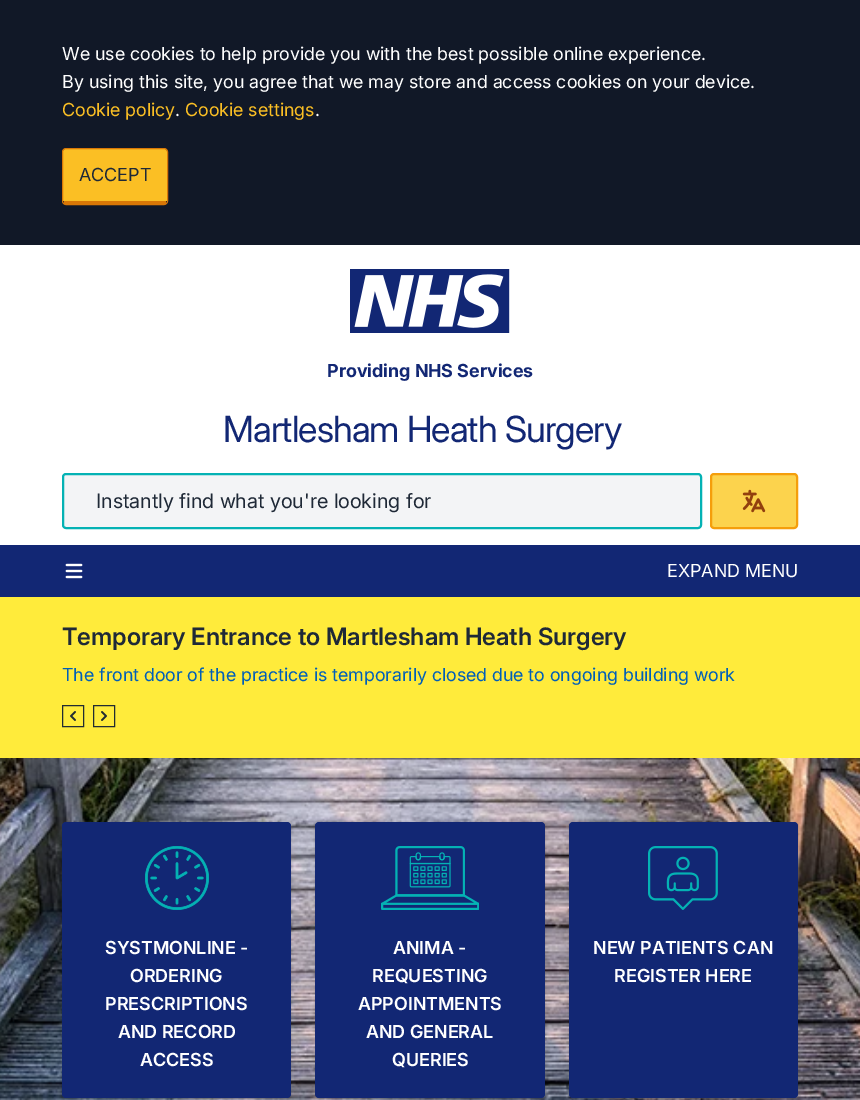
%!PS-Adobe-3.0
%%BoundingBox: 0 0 860 1100
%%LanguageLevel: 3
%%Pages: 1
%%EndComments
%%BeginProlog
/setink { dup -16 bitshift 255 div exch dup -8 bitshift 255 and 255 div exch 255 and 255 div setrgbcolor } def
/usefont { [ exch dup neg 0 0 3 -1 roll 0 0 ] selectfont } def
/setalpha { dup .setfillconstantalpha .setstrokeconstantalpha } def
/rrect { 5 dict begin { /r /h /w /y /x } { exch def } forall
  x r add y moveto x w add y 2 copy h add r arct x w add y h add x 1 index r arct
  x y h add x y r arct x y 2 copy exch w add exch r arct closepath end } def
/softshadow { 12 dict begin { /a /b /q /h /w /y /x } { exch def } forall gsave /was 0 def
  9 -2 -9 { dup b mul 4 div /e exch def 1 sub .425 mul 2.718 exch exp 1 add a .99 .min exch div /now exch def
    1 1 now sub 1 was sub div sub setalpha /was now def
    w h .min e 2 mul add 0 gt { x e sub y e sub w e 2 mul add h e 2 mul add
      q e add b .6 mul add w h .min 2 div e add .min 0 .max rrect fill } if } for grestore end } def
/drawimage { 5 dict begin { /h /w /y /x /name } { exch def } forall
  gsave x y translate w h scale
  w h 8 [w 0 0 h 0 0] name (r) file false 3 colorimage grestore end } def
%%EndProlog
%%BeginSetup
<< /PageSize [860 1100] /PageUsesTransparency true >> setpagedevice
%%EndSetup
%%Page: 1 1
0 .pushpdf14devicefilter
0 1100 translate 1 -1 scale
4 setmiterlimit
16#111827 setink
0 0 860 1100 rectfill
/Inter-Regular 18 usefont
16#FFFFFF setink
62 60 moveto (We use cookies to help provide you with the best possible online experience.) show
62 88 moveto (By using this site, you agree that we may store and access cookies on your device.) show
16#FBBF24 setink
62 116 moveto (Cookie policy) show
16#FFFFFF setink
175 116 moveto (.) show
16#FBBF24 setink
185 116 moveto (Cookie settings) show
16#FFFFFF setink
315 116 moveto (.) show
16#FBBF24 setink
66 149 moveto 164 149 lineto 166 149 167 150 167 152 curveto 167 201 lineto 63 201 lineto 63 152 lineto 63 150 64 149 66 149 curveto closepath fill
16#D97706 setink
62.5 148.5 105 56 3.5 rrect stroke
64 201 102 3 rectfill
16#1F2937 setink
79 181 moveto (ACCEPT) show
16#FFFFFF setink
0 245 860 300 rectfill
(img1.raw) 350 269 160 64 drawimage
/Inter-Bold 18 usefont
16#122774 setink
327 377 moveto (Providing NHS Services) show
/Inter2-Regular 36 usefont
223 442 moveto -0.9 0 (Martlesham Heath Surgery) ashow
16#F3F4F6 setink
63 474 638 54 3 rrect gsave fill grestore
16#04B2B4 setink
2 setlinewidth
stroke
/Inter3-Regular 20 usefont
16#1F2937 setink
96 508 moveto (Instantly find what you're looking for) show
16#FCD34D setink
711 474 86 54 3 rrect gsave fill grestore
16#F59E0B setink
stroke
(img2.raw) 742 489 24 24 drawimage
16#122774 setink
0 545 860 52 rectfill
(img3.raw) 65 563 18 16 drawimage
/Inter-Regular 18 usefont
16#FFFFFF setink
667 577 moveto (EXPAND MENU) show
16#FFEB3B setink
0 597 860 161 rectfill
/Inter2-SemiBold 24 usefont
16#1F2937 setink
62 645 moveto (Temporary Entrance to Martlesham Heath Surgery) show
/Inter-Regular 18 usefont
16#005EB8 setink
62 681 moveto (The front door of the practice is temporarily closed due to ongoing building work) show
16#212B32 setink
1 setlinewidth
62.5 705.5 21 21 rectstroke
(img4.raw) 70 711 6 10 drawimage
93.5 705.5 21 21 rectstroke
(img5.raw) 101 711 6 10 drawimage
(img6.raw) 0 758 860 342 drawimage
16#000000 setink
62 823 229 276 4 1 0.06 softshadow
62 823 229 276 4 1.5 0.1 softshadow
16#122774 setink
62 822 229 276 4 rrect fill
(img7.raw) 145 846 64 64 drawimage
/Inter-SemiBold 18 usefont
16#FFFFFF setink
[
    [(SYSTMONLINE -) 105 954]
    [(ORDERING) 130 982]
    [(PRESCRIPTIONS) 105 1010]
    [(AND RECORD) 118 1038]
    [(ACCESS) 140 1066]
] { aload pop moveto show } forall
16#000000 setink
315 823 230 276 4 1 0.06 softshadow
315 823 230 276 4 1.5 0.1 softshadow
16#122774 setink
315 822 230 276 4 rrect fill
(img8.raw) 381 846 98 64 drawimage
16#FFFFFF setink
[
    [(ANIMA -) 393 954]
    [(REQUESTING) 372 982]
    [(APPOINTMENTS) 358 1010]
    [(AND GENERAL) 366 1038]
    [(QUERIES) 392 1066]
] { aload pop moveto show } forall
16#000000 setink
569 823 229 276 4 1 0.06 softshadow
569 823 229 276 4 1.5 0.1 softshadow
16#122774 setink
569 822 229 276 4 rrect fill
(img9.raw) 648 846 70 64 drawimage
16#FFFFFF setink
593 954 moveto (NEW PATIENTS CAN) show
614 982 moveto (REGISTER HERE) show
.poppdf14devicefilter showpage
%%EOF
